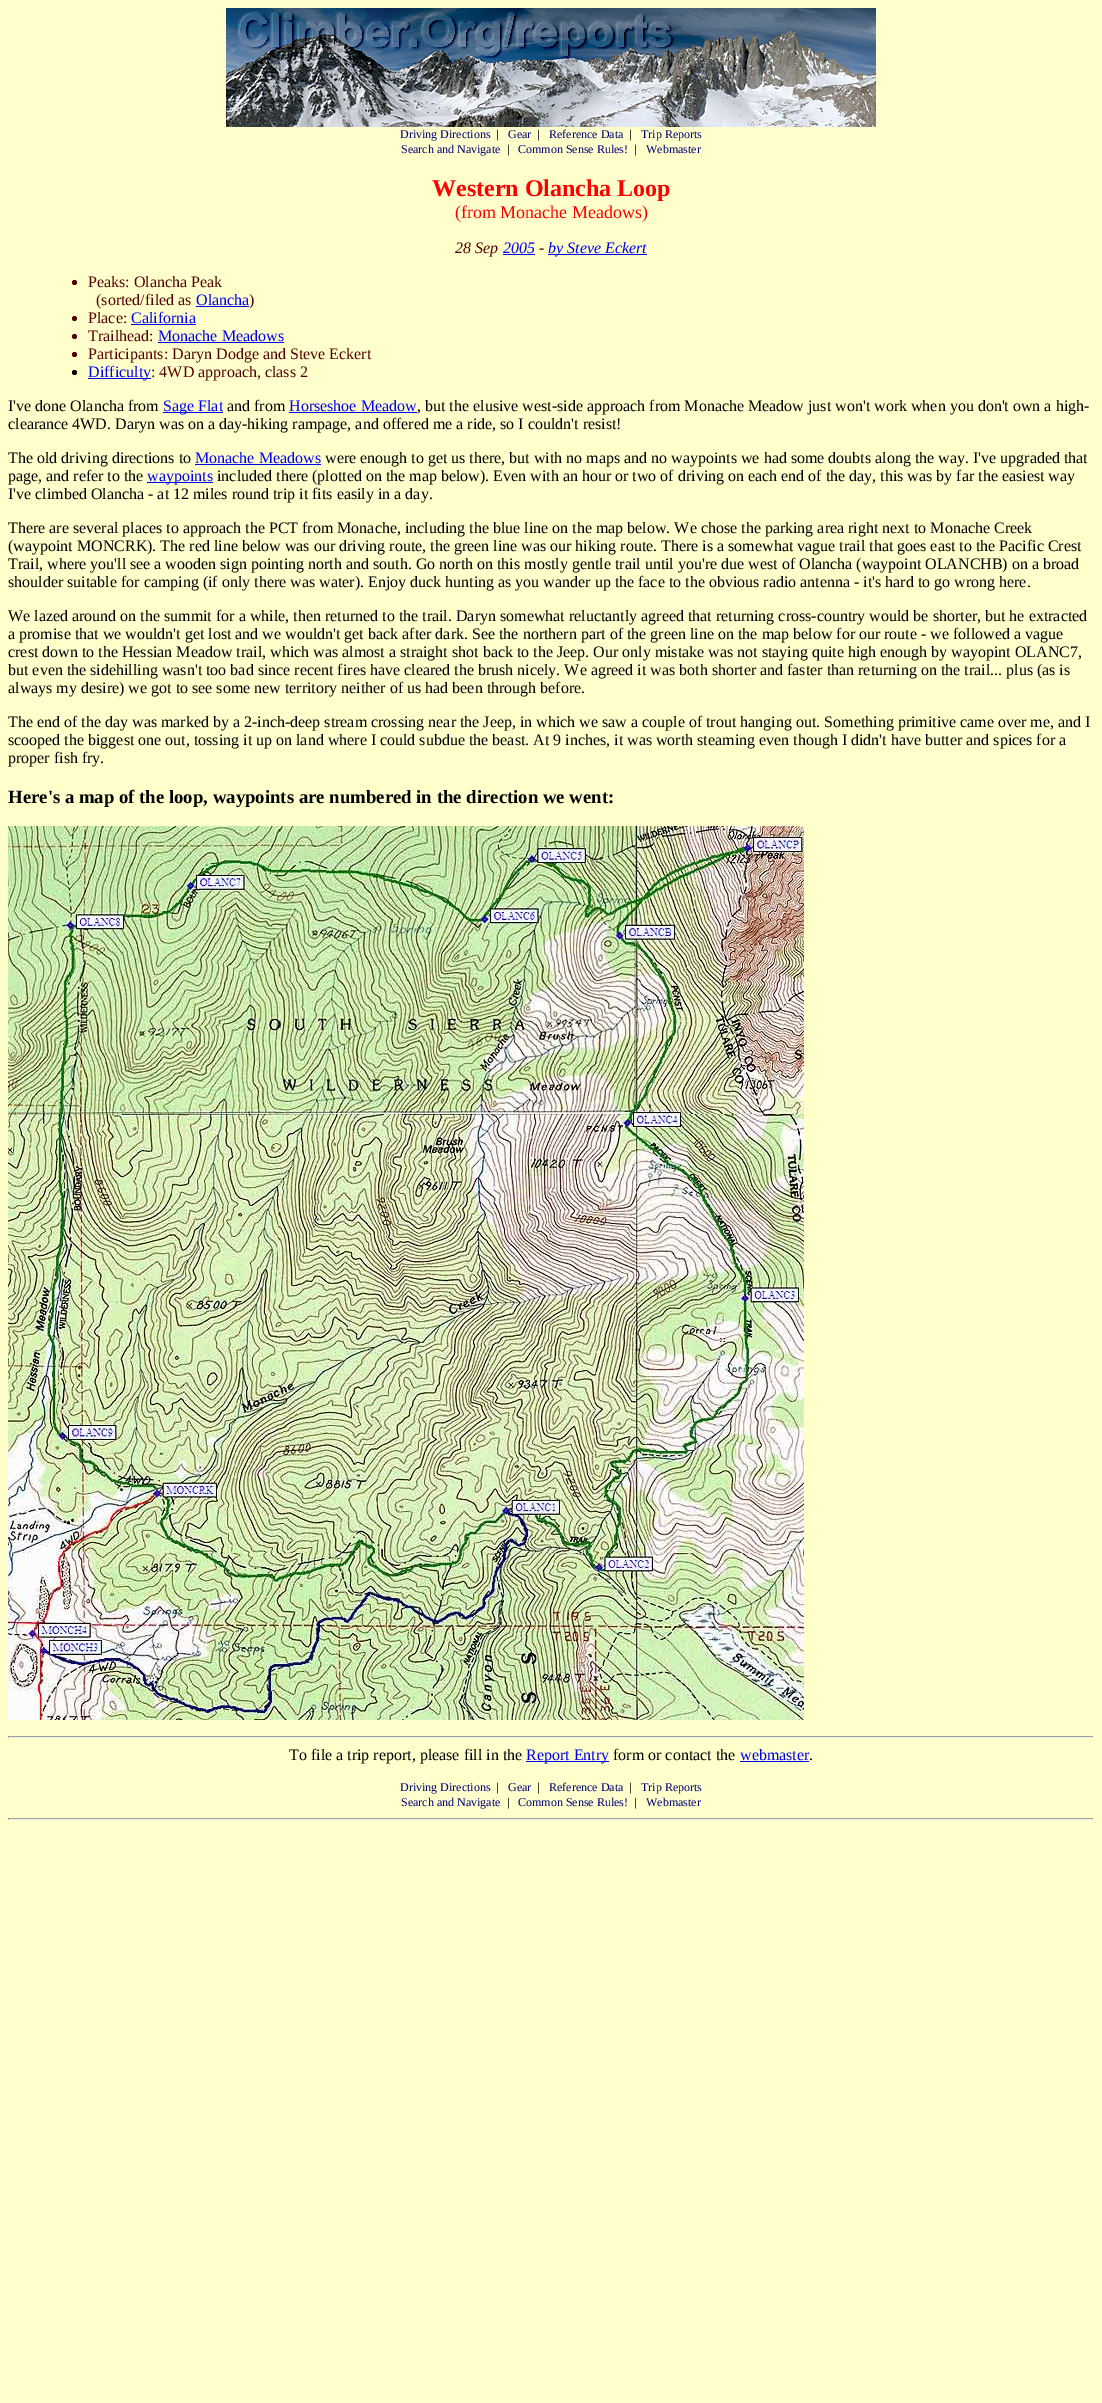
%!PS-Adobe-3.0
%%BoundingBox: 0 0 1102 2403
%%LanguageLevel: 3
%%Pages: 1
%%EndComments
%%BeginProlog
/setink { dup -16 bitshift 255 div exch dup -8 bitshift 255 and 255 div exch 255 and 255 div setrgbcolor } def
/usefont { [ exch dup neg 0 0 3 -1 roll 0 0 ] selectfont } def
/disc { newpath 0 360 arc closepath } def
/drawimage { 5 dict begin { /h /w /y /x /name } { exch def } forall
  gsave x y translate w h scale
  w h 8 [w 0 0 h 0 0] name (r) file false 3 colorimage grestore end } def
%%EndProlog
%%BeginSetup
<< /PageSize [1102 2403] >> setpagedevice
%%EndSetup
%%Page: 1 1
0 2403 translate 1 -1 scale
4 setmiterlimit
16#FFFFCC setink
0 0 1102 2403 rectfill
(img1.raw) 226 8 650 119 drawimage
/LiberationSerif-Regular 12 usefont
16#000077 setink
400 138 moveto (Driving Directions) show
/LiberationSerif-Bold 12 usefont
16#000000 setink
496 138 moveto (|) show
/LiberationSerif-Regular 12 usefont
16#000077 setink
508 138 moveto (Gear) show
/LiberationSerif-Bold 12 usefont
16#000000 setink
537 138 moveto (|) show
/LiberationSerif-Regular 12 usefont
16#000077 setink
549 138 moveto (Reference Data) show
/LiberationSerif-Bold 12 usefont
16#000000 setink
629 138 moveto (|) show
/LiberationSerif-Regular 12 usefont
16#000077 setink
641 138 moveto (Trip Reports) show
401 153 moveto (Search and Navigate) show
/LiberationSerif-Bold 12 usefont
16#000000 setink
507 153 moveto (|) show
/LiberationSerif-Regular 12 usefont
16#000077 setink
518 153 moveto (Common Sense Rules!) show
/LiberationSerif-Bold 12 usefont
16#000000 setink
634 153 moveto (|) show
/LiberationSerif-Regular 12 usefont
16#000077 setink
646 153 moveto (Webmaster) show
/LiberationSerif-Bold 24 usefont
16#FF0000 setink
432 196 moveto (Western Olancha Loop) show
/LiberationSerif-Regular 18 usefont
455 218 moveto (\(from Monache Meadows\)) show
/LiberationSerif-Italic 16 usefont
16#550000 setink
455 253 moveto (28 Sep) show
16#0000EE setink
503 253 moveto (2005) show
503 254 32 1 rectfill
16#550000 setink
539 253 moveto (-) show
16#0000EE setink
548 254 99 1 rectfill
548 253 moveto (by Steve Eckert) show
16#550000 setink
74.5 282.5 2.5 disc fill
/LiberationSerif-Regular 16 usefont
88 287 moveto (Peaks: Olancha Peak) show
96 305 moveto (\(sorted/filed as) show
16#0000EE setink
196 305 moveto (Olancha) show
196 306 53 1 rectfill
16#550000 setink
249 305 moveto (\)) show
74.5 318.5 2.5 disc fill
88 323 moveto (Place:) show
16#0000EE setink
131 323 moveto (California) show
131 324 65 1 rectfill
16#550000 setink
74.5 336.5 2.5 disc fill
88 341 moveto (Trailhead:) show
16#0000EE setink
158 341 moveto (Monache Meadows) show
158 342 126 1 rectfill
16#550000 setink
74.5 354.5 2.5 disc fill
88 359 moveto (Participants: Daryn Dodge and Steve Eckert) show
16#000000 setink
74.5 372.5 2.5 disc fill
16#0000EE setink
88 378 63 1 rectfill
88 377 moveto (Difficulty) show
16#550000 setink
151 377 moveto (: 4WD approach, class 2) show
16#000000 setink
8 411 moveto (I've done Olancha from) show
16#0000EE setink
163 412 60 1 rectfill
163 411 moveto (Sage Flat) show
16#000000 setink
227 411 moveto (and from) show
16#0000EE setink
289 411 moveto (Horseshoe Meadow) show
289 412 128 1 rectfill
16#000000 setink
[
    [(, but the elusive west-side approach from Monache Meadow just won't work when you don't own a high-) 417 411]
    [(clearance 4WD. Daryn was on a day-hiking rampage, and offered me a ride, so I couldn't resist!) 8 429]
    [(The old driving directions to) 8 463]
] { aload pop moveto show } forall
16#0000EE setink
195 463 moveto (Monache Meadows) show
195 464 126 1 rectfill
16#000000 setink
325 463 moveto (were enough to get us there, but with no maps and no waypoints we had some doubts along the way. I've upgraded that) show
8 481 moveto (page, and refer to the) show
16#0000EE setink
147 482 66 1 rectfill
147 481 moveto (waypoints) show
16#000000 setink
[
    [(included there \(plotted on the map below\). Even with an hour or two of driving on each end of the day, this was by far the easiest way) 217 481]
    [(I've climbed Olancha - at 12 miles round trip it fits easily in a day.) 8 499]
    [(There are several places to approach the PCT from Monache, including the blue line on the map below. We chose the parking area right next to Monache Creek) 8 533]
    [(\(waypoint MONCRK\). The red line below was our driving route, the green line was our hiking route. There is a somewhat vague trail that goes east to the Pacific Crest) 8 551]
    [(Trail, where you'll see a wooden sign pointing north and south. Go north on this mostly gentle trail until you're due west of Olancha \(waypoint OLANCHB\) on a broad) 8 569]
    [(shoulder suitable for camping \(if only there was water\). Enjoy duck hunting as you wander up the face to the obvious radio antenna - it's hard to go wrong here.) 8 587]
    [(We lazed around on the summit for a while, then returned to the trail. Daryn somewhat reluctantly agreed that returning cross-country would be shorter, but he extracted) 8 621]
    [(a promise that we wouldn't get lost and we wouldn't get back after dark. See the northern part of the green line on the map below for our route - we followed a vague) 8 639]
    [(crest down to the Hessian Meadow trail, which was almost a straight shot back to the Jeep. Our only mistake was not staying quite high enough by wayopint OLANC7,) 8 657]
    [(but even the sidehilling wasn't too bad since recent fires have cleared the brush nicely. We agreed it was both shorter and faster than returning on the trail... plus \(as is) 8 675]
    [(always my desire\) we got to see some new territory neither of us had been through before.) 8 693]
    [(The end of the day was marked by a 2-inch-deep stream crossing near the Jeep, in which we saw a couple of trout hanging out. Something primitive came over me, and I) 8 727]
    [(scooped the biggest one out, tossing it up on land where I could subdue the beast. At 9 inches, it was worth steaming even though I didn't have butter and spices for a) 8 745]
    [(proper fish fry.) 8 763]
] { aload pop moveto show } forall
/LiberationSerif-Bold 18.75 usefont
8 803 moveto (Here's a map of the loop, waypoints are numbered in the direction we went:) show
(img2.raw) 8 826 796 894 drawimage
[
    [8 1736 1086 1 16#9F9F9F]
    [1093 1736 1 2 16#EEEEEE]
    [8 1737 1086 1 16#EEEEEE]
    [8 1736 1 2 16#9F9F9F]
] { aload pop setink rectfill } forall
/LiberationSerif-Regular 16 usefont
16#000000 setink
289 1760 moveto (To file a trip report, please fill in the) show
16#0000EE setink
526 1761 83 1 rectfill
526 1760 moveto (Report Entry) show
16#000000 setink
613 1760 moveto (form or contact the) show
16#0000EE setink
740 1760 moveto (webmaster) show
740 1761 69 1 rectfill
16#000000 setink
809 1760 moveto (.) show
/LiberationSerif-Regular 12 usefont
16#000077 setink
400 1791 moveto (Driving Directions) show
/LiberationSerif-Bold 12 usefont
16#000000 setink
496 1791 moveto (|) show
/LiberationSerif-Regular 12 usefont
16#000077 setink
508 1791 moveto (Gear) show
/LiberationSerif-Bold 12 usefont
16#000000 setink
537 1791 moveto (|) show
/LiberationSerif-Regular 12 usefont
16#000077 setink
549 1791 moveto (Reference Data) show
/LiberationSerif-Bold 12 usefont
16#000000 setink
629 1791 moveto (|) show
/LiberationSerif-Regular 12 usefont
16#000077 setink
641 1791 moveto (Trip Reports) show
401 1806 moveto (Search and Navigate) show
/LiberationSerif-Bold 12 usefont
16#000000 setink
507 1806 moveto (|) show
/LiberationSerif-Regular 12 usefont
16#000077 setink
518 1806 moveto (Common Sense Rules!) show
/LiberationSerif-Bold 12 usefont
16#000000 setink
634 1806 moveto (|) show
/LiberationSerif-Regular 12 usefont
16#000077 setink
646 1806 moveto (Webmaster) show
[
    [8 1818 1086 1 16#9F9F9F]
    [1093 1818 1 2 16#EEEEEE]
    [8 1819 1086 1 16#EEEEEE]
    [8 1818 1 2 16#9F9F9F]
] { aload pop setink rectfill } forall
showpage
%%EOF
